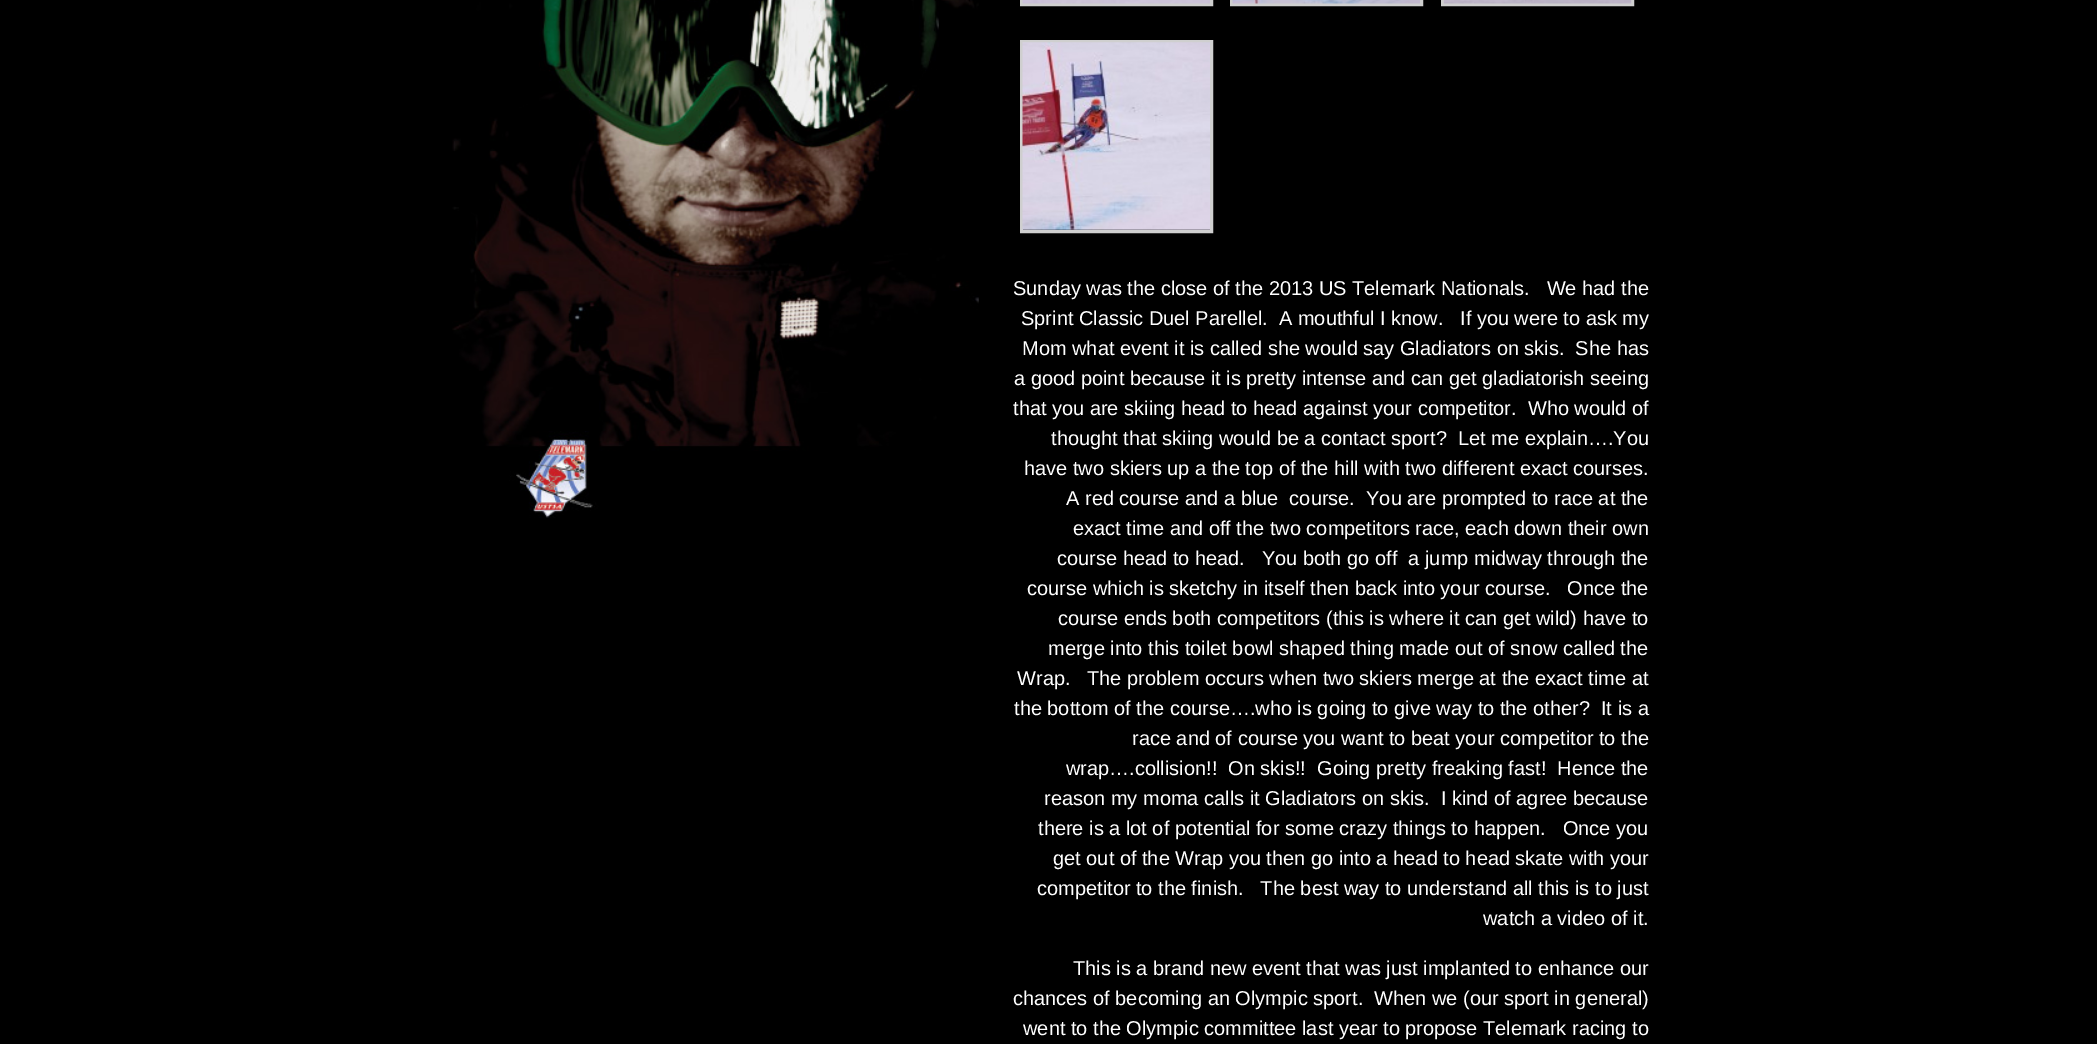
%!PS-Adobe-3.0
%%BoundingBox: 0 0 2097 1044
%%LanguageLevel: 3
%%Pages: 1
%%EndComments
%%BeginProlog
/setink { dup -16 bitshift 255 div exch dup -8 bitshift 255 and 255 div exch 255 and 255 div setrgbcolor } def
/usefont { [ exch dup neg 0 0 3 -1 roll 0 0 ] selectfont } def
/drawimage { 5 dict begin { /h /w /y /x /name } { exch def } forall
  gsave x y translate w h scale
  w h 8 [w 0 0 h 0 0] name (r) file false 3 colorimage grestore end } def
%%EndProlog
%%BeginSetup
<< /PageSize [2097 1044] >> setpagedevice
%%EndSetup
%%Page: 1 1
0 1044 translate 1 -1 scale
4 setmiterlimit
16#000000 setink
0 0 2097 1044 rectfill
(img1.raw) 452 0 527 518 drawimage
16#CFCFCF setink
3 setlinewidth
1021.5 -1.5 190 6 rectstroke
(img2.raw) 1022 0 188 4 drawimage
1231.5 -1.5 190 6 rectstroke
(img3.raw) 1232 0 188 4 drawimage
1442.5 -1.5 190 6 rectstroke
(img4.raw) 1443 0 189 4 drawimage
1021.5 41.5 190 190 rectstroke
(img5.raw) 1022 42 188 188 drawimage
/LiberationSans-Regular 20 usefont
16#FFFFFF setink
[
    [(Sunday was the close of the 2013 US Telemark Nationals.   We had the) 1013 295]
    [(Sprint Classic Duel Parellel.  A mouthful I know.   If you were to ask my) 1021 325]
    [(Mom what event it is called she would say Gladiators on skis.  She has) 1022 355]
    [(a good point because it is pretty intense and can get gladiatorish seeing) 1014 385]
    [(that you are skiing head to head against your competitor.  Who would of) 1013 415]
    [(thought that skiing would be a contact sport?  Let me explain….You) 1051 445]
    [(have two skiers up a the top of the hill with two different exact courses.) 1024 475]
    [(A red course and a blue  course.  You are prompted to race at the) 1066 505]
    [(exact time and off the two competitors race, each down their own) 1073 535]
    [(course head to head.   You both go off  a jump midway through the) 1057 565]
    [(course which is sketchy in itself then back into your course.   Once the) 1027 595]
    [(course ends both competitors \(this is where it can get wild\) have to) 1058 625]
    [(merge into this toilet bowl shaped thing made out of snow called the) 1048 655]
    [(Wrap.   The problem occurs when two skiers merge at the exact time at) 1017 685]
    [(the bottom of the course….who is going to give way to the other?  It is a) 1014 715]
    [(race and of course you want to beat your competitor to the) 1132 745]
    [(wrap….collision!!  On skis!!  Going pretty freaking fast!  Hence the) 1066 775]
    [(reason my moma calls it Gladiators on skis.  I kind of agree because) 1044 805]
    [(there is a lot of potential for some crazy things to happen.   Once you) 1038 835]
    [(get out of the Wrap you then go into a head to head skate with your) 1053 865]
    [(competitor to the finish.   The best way to understand all this is to just) 1037 895]
    [(watch a video of it.) 1483 925]
    [(This is a brand new event that was just implanted to enhance our) 1073 975]
    [(chances of becoming an Olympic sport.  When we \(our sport in general\)) 1013 1005]
    [(went to the Olympic committee last year to propose Telemark racing to) 1023 1035]
] { aload pop moveto show } forall
showpage
%%EOF
